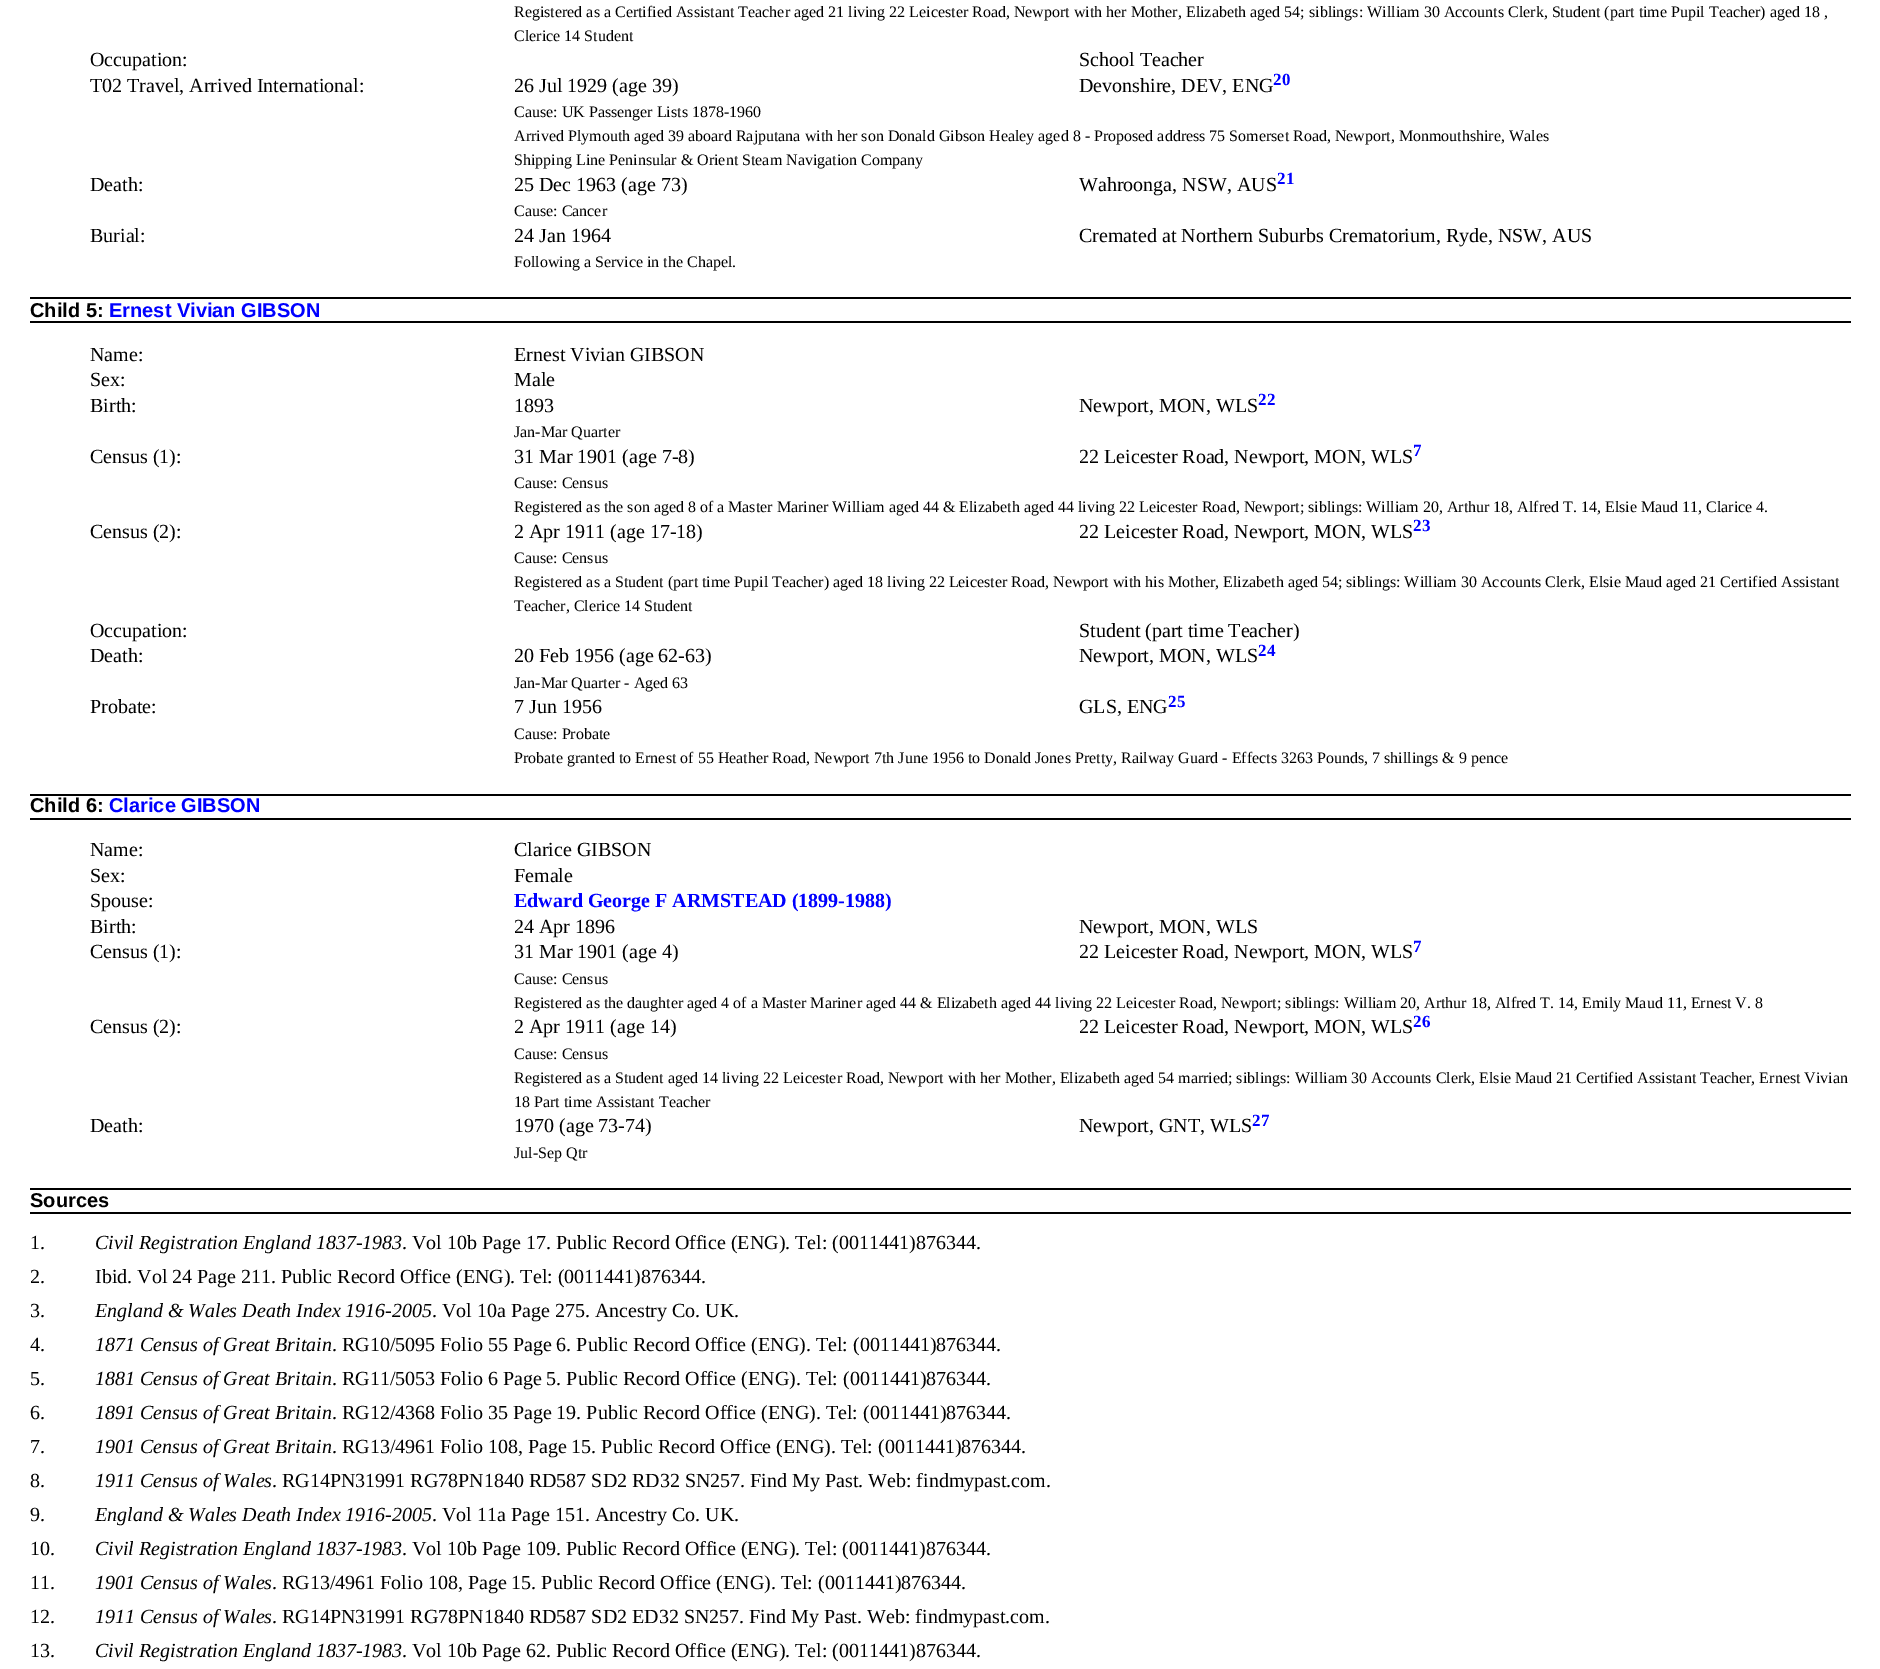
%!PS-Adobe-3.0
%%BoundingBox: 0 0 1880 1669
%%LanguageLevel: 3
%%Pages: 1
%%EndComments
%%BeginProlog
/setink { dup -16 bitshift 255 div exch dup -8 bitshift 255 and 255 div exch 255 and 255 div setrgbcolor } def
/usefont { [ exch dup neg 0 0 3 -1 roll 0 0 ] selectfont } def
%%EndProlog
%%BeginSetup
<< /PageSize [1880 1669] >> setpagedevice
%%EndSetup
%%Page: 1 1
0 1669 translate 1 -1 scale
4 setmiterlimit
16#FFFFFF setink
0 0 1880 1669 rectfill
/LiberationSerif-Regular 16 usefont
16#000000 setink
514 17 moveto (Registered as a Certified Assistant Teacher aged 21 living 22 Leicester Road, Newport with her Mother, Elizabeth aged 54; siblings: William 30 Accounts Clerk, Student \(part time Pupil Teacher\) aged 18 ,) show
514 41 moveto (Clerice 14 Student) show
/LiberationSerif-Regular 20 usefont
[
    [(Occupation:) 90 66]
    [(School Teacher) 1079 66]
    [(T02 Travel, Arrived International:) 90 92]
    [(26 Jul 1929 \(age 39\)) 514 92]
    [(Devonshire, DEV, ENG) 1079 92]
] { aload pop moveto show } forall
/LiberationSerif-Bold 17 usefont
16#0000FF setink
1273 85 moveto (20) show
/LiberationSerif-Regular 16 usefont
16#000000 setink
[
    [(Cause: UK Passenger Lists 1878-1960) 514 117]
    [(Arrived Plymouth aged 39 aboard Rajputana with her son Donald Gibson Healey aged 8 - Proposed address 75 Somerset Road, Newport, Monmouthshire, Wales) 514 141]
    [(Shipping Line Peninsular & Orient Steam Navigation Company) 514 165]
] { aload pop moveto show } forall
/LiberationSerif-Regular 20 usefont
[
    [(Death:) 90 191]
    [(25 Dec 1963 \(age 73\)) 514 191]
    [(Wahroonga, NSW, AUS) 1079 191]
] { aload pop moveto show } forall
/LiberationSerif-Bold 17 usefont
16#0000FF setink
1277 184 moveto (21) show
/LiberationSerif-Regular 16 usefont
16#000000 setink
514 216 moveto (Cause: Cancer) show
/LiberationSerif-Regular 20 usefont
[
    [(Burial:) 90 242]
    [(24 Jan 1964) 514 242]
    [(Cremated at Northern Suburbs Crematorium, Ryde, NSW, AUS) 1079 242]
] { aload pop moveto show } forall
/LiberationSerif-Regular 16 usefont
514 267 moveto (Following a Service in the Chapel.) show
30 297 1821 2 rectfill
30 321 1821 2 rectfill
/LiberationSans-Bold 20 usefont
30 317 moveto (Child 5:) show
16#0000FF setink
109 317 moveto (Ernest Vivian GIBSON) show
/LiberationSerif-Regular 20 usefont
16#000000 setink
[
    [(Name:) 90 361]
    [(Ernest Vivian GIBSON) 514 361]
    [(Sex:) 90 386]
    [(Male) 514 386]
    [(Birth:) 90 412]
    [(1893) 514 412]
    [(Newport, MON, WLS) 1079 412]
] { aload pop moveto show } forall
/LiberationSerif-Bold 17 usefont
16#0000FF setink
1258 405 moveto (22) show
/LiberationSerif-Regular 16 usefont
16#000000 setink
514 437 moveto (Jan-Mar Quarter) show
/LiberationSerif-Regular 20 usefont
[
    [(Census \(1\):) 90 463]
    [(31 Mar 1901 \(age 7-8\)) 514 463]
    [(22 Leicester Road, Newport, MON, WLS) 1079 463]
] { aload pop moveto show } forall
/LiberationSerif-Bold 17 usefont
16#0000FF setink
1413 456 moveto (7) show
/LiberationSerif-Regular 16 usefont
16#000000 setink
514 488 moveto (Cause: Census) show
514 512 moveto (Registered as the son aged 8 of a Master Mariner William aged 44 & Elizabeth aged 44 living 22 Leicester Road, Newport; siblings: William 20, Arthur 18, Alfred T. 14, Elsie Maud 11, Clarice 4.) show
/LiberationSerif-Regular 20 usefont
[
    [(Census \(2\):) 90 538]
    [(2 Apr 1911 \(age 17-18\)) 514 538]
    [(22 Leicester Road, Newport, MON, WLS) 1079 538]
] { aload pop moveto show } forall
/LiberationSerif-Bold 17 usefont
16#0000FF setink
1413 531 moveto (23) show
/LiberationSerif-Regular 16 usefont
16#000000 setink
[
    [(Cause: Census) 514 563]
    [(Registered as a Student \(part time Pupil Teacher\) aged 18 living 22 Leicester Road, Newport with his Mother, Elizabeth aged 54; siblings: William 30 Accounts Clerk, Elsie Maud aged 21 Certified Assistant) 514 587]
    [(Teacher, Clerice 14 Student) 514 611]
] { aload pop moveto show } forall
/LiberationSerif-Regular 20 usefont
[
    [(Occupation:) 90 637]
    [(Student \(part time Teacher\)) 1079 637]
    [(Death:) 90 662]
    [(20 Feb 1956 \(age 62-63\)) 514 662]
    [(Newport, MON, WLS) 1079 662]
] { aload pop moveto show } forall
/LiberationSerif-Bold 17 usefont
16#0000FF setink
1258 656 moveto (24) show
/LiberationSerif-Regular 16 usefont
16#000000 setink
514 688 moveto (Jan-Mar Quarter - Aged 63) show
/LiberationSerif-Regular 20 usefont
[
    [(Probate:) 90 713]
    [(7 Jun 1956) 514 713]
    [(GLS, ENG) 1079 713]
] { aload pop moveto show } forall
/LiberationSerif-Bold 17 usefont
16#0000FF setink
1168 707 moveto (25) show
/LiberationSerif-Regular 16 usefont
16#000000 setink
514 739 moveto (Cause: Probate) show
514 763 moveto (Probate granted to Ernest of 55 Heather Road, Newport 7th June 1956 to Donald Jones Pretty, Railway Guard - Effects 3263 Pounds, 7 shillings & 9 pence) show
30 794 1821 2 rectfill
30 818 1821 2 rectfill
/LiberationSans-Bold 20 usefont
30 812 moveto (Child 6:) show
16#0000FF setink
109 812 moveto (Clarice GIBSON) show
/LiberationSerif-Regular 20 usefont
16#000000 setink
[
    [(Name:) 90 856]
    [(Clarice GIBSON) 514 856]
    [(Sex:) 90 882]
    [(Female) 514 882]
    [(Spouse:) 90 907]
] { aload pop moveto show } forall
/LiberationSerif-Bold 20 usefont
16#0000FF setink
514 907 moveto (Edward George F ARMSTEAD \(1899-1988\)) show
/LiberationSerif-Regular 20 usefont
16#000000 setink
[
    [(Birth:) 90 933]
    [(24 Apr 1896) 514 933]
    [(Newport, MON, WLS) 1079 933]
    [(Census \(1\):) 90 958]
    [(31 Mar 1901 \(age 4\)) 514 958]
    [(22 Leicester Road, Newport, MON, WLS) 1079 958]
] { aload pop moveto show } forall
/LiberationSerif-Bold 17 usefont
16#0000FF setink
1413 952 moveto (7) show
/LiberationSerif-Regular 16 usefont
16#000000 setink
514 984 moveto (Cause: Census) show
514 1008 moveto (Registered as the daughter aged 4 of a Master Mariner aged 44 & Elizabeth aged 44 living 22 Leicester Road, Newport; siblings: William 20, Arthur 18, Alfred T. 14, Emily Maud 11, Ernest V. 8) show
/LiberationSerif-Regular 20 usefont
[
    [(Census \(2\):) 90 1033]
    [(2 Apr 1911 \(age 14\)) 514 1033]
    [(22 Leicester Road, Newport, MON, WLS) 1079 1033]
] { aload pop moveto show } forall
/LiberationSerif-Bold 17 usefont
16#0000FF setink
1413 1027 moveto (26) show
/LiberationSerif-Regular 16 usefont
16#000000 setink
[
    [(Cause: Census) 514 1059]
    [(Registered as a Student aged 14 living 22 Leicester Road, Newport with her Mother, Elizabeth aged 54 married; siblings: William 30 Accounts Clerk, Elsie Maud 21 Certified Assistant Teacher, Ernest Vivian) 514 1083]
    [(18 Part time Assistant Teacher) 514 1107]
] { aload pop moveto show } forall
/LiberationSerif-Regular 20 usefont
[
    [(Death:) 90 1132]
    [(1970 \(age 73-74\)) 514 1132]
    [(Newport, GNT, WLS) 1079 1132]
] { aload pop moveto show } forall
/LiberationSerif-Bold 17 usefont
16#0000FF setink
1252 1126 moveto (27) show
/LiberationSerif-Regular 16 usefont
16#000000 setink
514 1158 moveto (Jul-Sep Qtr) show
30 1188 1821 2 rectfill
30 1212 1821 2 rectfill
/LiberationSans-Bold 20 usefont
30 1207 moveto (Sources) show
/LiberationSerif-Regular 20 usefont
30 1249 moveto (1.) show
/LiberationSerif-Italic 20 usefont
95 1249 moveto (Civil Registration England 1837-1983) show
/LiberationSerif-Regular 20 usefont
[
    [(. Vol 10b Page 17. Public Record Office \(ENG\). Tel: \(0011441\)876344.) 402 1249]
    [(2.) 30 1283]
    [(Ibid. Vol 24 Page 211. Public Record Office \(ENG\). Tel: \(0011441\)876344.) 95 1283]
    [(3.) 30 1317]
] { aload pop moveto show } forall
/LiberationSerif-Italic 20 usefont
95 1317 moveto (England & Wales Death Index 1916-2005) show
/LiberationSerif-Regular 20 usefont
432 1317 moveto (. Vol 10a Page 275. Ancestry Co. UK.) show
30 1351 moveto (4.) show
/LiberationSerif-Italic 20 usefont
95 1351 moveto (1871 Census of Great Britain) show
/LiberationSerif-Regular 20 usefont
332 1351 moveto (. RG10/5095 Folio 55 Page 6. Public Record Office \(ENG\). Tel: \(0011441\)876344.) show
30 1385 moveto (5.) show
/LiberationSerif-Italic 20 usefont
95 1385 moveto (1881 Census of Great Britain) show
/LiberationSerif-Regular 20 usefont
332 1385 moveto (. RG11/5053 Folio 6 Page 5. Public Record Office \(ENG\). Tel: \(0011441\)876344.) show
30 1419 moveto (6.) show
/LiberationSerif-Italic 20 usefont
95 1419 moveto (1891 Census of Great Britain) show
/LiberationSerif-Regular 20 usefont
332 1419 moveto (. RG12/4368 Folio 35 Page 19. Public Record Office \(ENG\). Tel: \(0011441\)876344.) show
30 1453 moveto (7.) show
/LiberationSerif-Italic 20 usefont
95 1453 moveto (1901 Census of Great Britain) show
/LiberationSerif-Regular 20 usefont
332 1453 moveto (. RG13/4961 Folio 108, Page 15. Public Record Office \(ENG\). Tel: \(0011441\)876344.) show
30 1487 moveto (8.) show
/LiberationSerif-Italic 20 usefont
95 1487 moveto (1911 Census of Wales) show
/LiberationSerif-Regular 20 usefont
272 1487 moveto (. RG14PN31991 RG78PN1840 RD587 SD2 RD32 SN257. Find My Past. Web: findmypast.com.) show
30 1521 moveto (9.) show
/LiberationSerif-Italic 20 usefont
95 1521 moveto (England & Wales Death Index 1916-2005) show
/LiberationSerif-Regular 20 usefont
432 1521 moveto (. Vol 11a Page 151. Ancestry Co. UK.) show
30 1555 moveto (10.) show
/LiberationSerif-Italic 20 usefont
95 1555 moveto (Civil Registration England 1837-1983) show
/LiberationSerif-Regular 20 usefont
402 1555 moveto (. Vol 10b Page 109. Public Record Office \(ENG\). Tel: \(0011441\)876344.) show
30 1589 moveto (11.) show
/LiberationSerif-Italic 20 usefont
95 1589 moveto (1901 Census of Wales) show
/LiberationSerif-Regular 20 usefont
272 1589 moveto (. RG13/4961 Folio 108, Page 15. Public Record Office \(ENG\). Tel: \(0011441\)876344.) show
30 1623 moveto (12.) show
/LiberationSerif-Italic 20 usefont
95 1623 moveto (1911 Census of Wales) show
/LiberationSerif-Regular 20 usefont
272 1623 moveto (. RG14PN31991 RG78PN1840 RD587 SD2 ED32 SN257. Find My Past. Web: findmypast.com.) show
30 1657 moveto (13.) show
/LiberationSerif-Italic 20 usefont
95 1657 moveto (Civil Registration England 1837-1983) show
/LiberationSerif-Regular 20 usefont
402 1657 moveto (. Vol 10b Page 62. Public Record Office \(ENG\). Tel: \(0011441\)876344.) show
showpage
%%EOF
